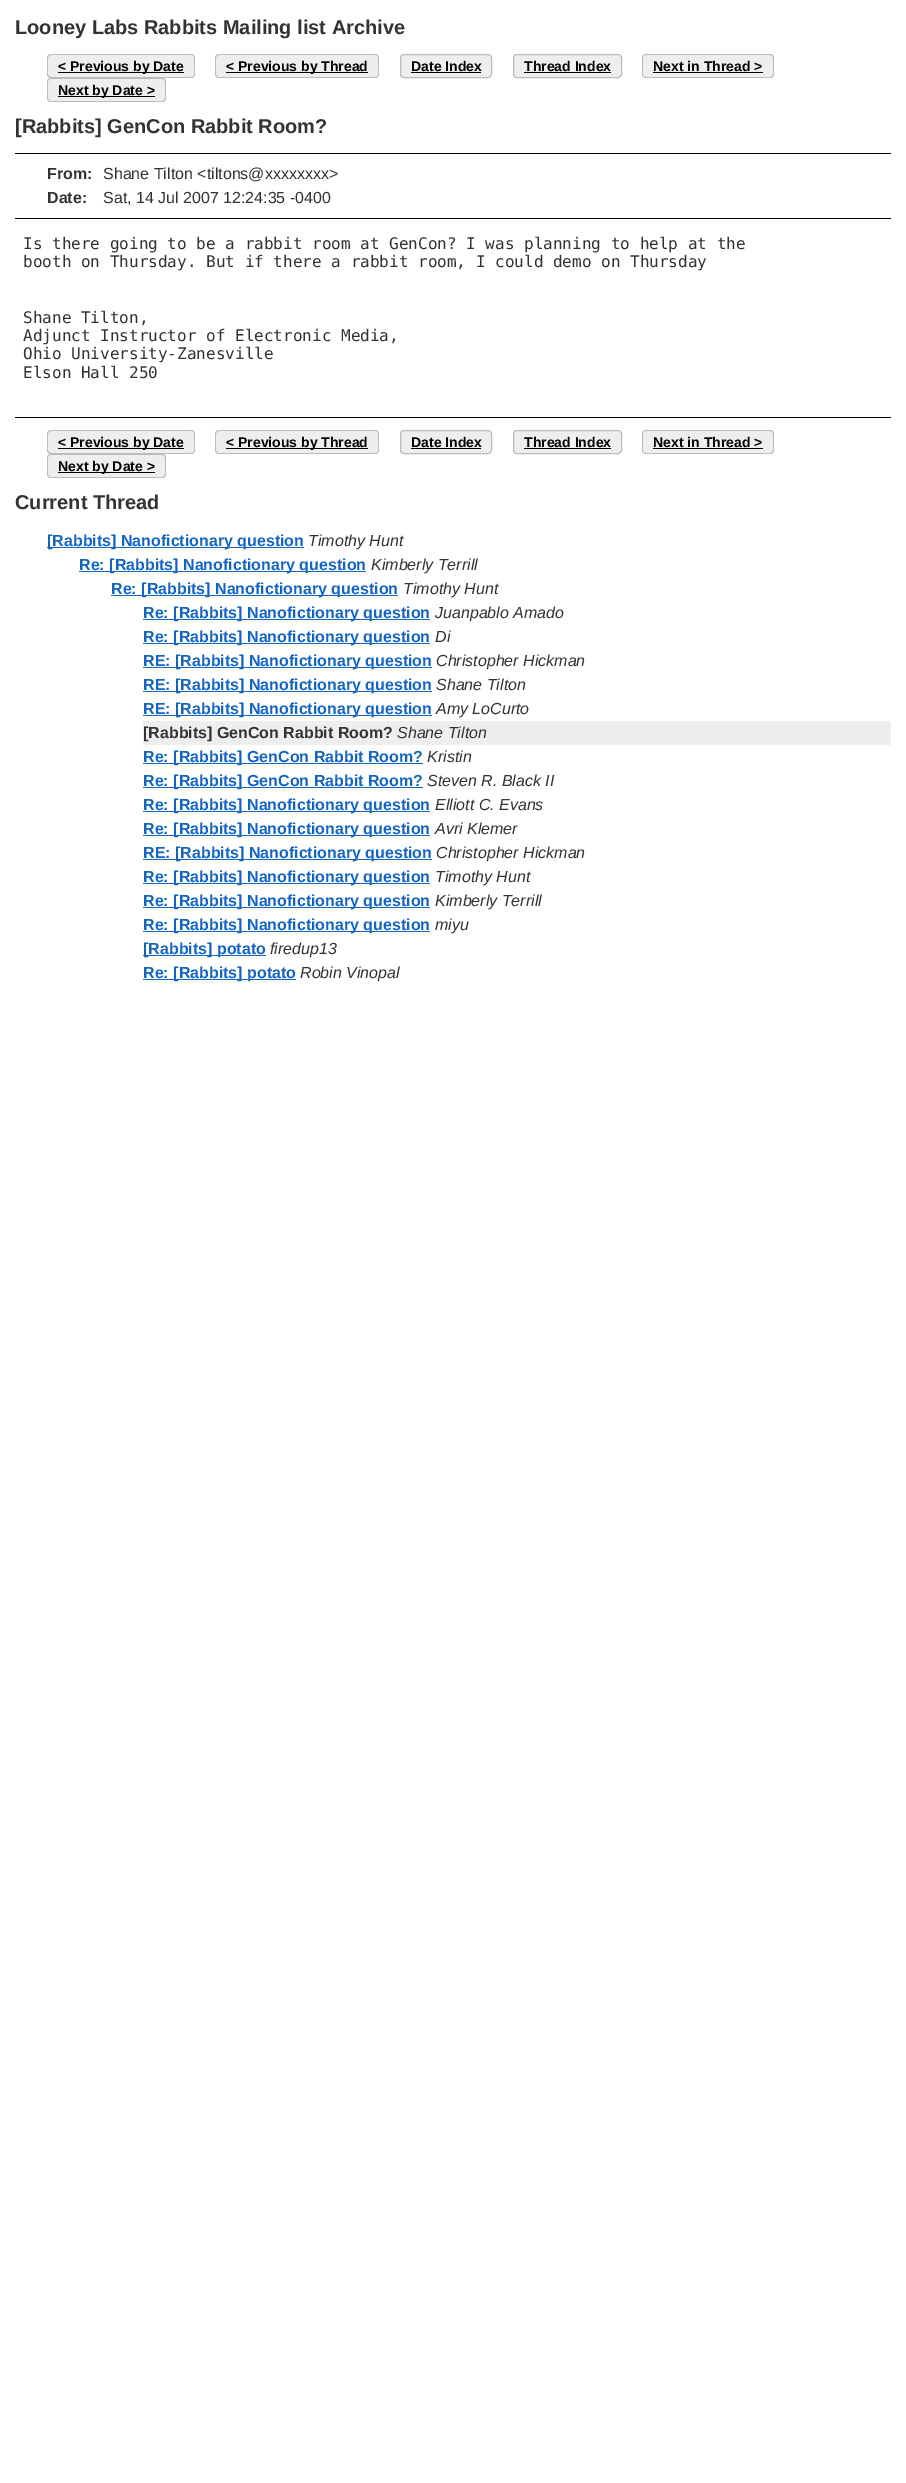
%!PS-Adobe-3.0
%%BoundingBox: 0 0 906 2483
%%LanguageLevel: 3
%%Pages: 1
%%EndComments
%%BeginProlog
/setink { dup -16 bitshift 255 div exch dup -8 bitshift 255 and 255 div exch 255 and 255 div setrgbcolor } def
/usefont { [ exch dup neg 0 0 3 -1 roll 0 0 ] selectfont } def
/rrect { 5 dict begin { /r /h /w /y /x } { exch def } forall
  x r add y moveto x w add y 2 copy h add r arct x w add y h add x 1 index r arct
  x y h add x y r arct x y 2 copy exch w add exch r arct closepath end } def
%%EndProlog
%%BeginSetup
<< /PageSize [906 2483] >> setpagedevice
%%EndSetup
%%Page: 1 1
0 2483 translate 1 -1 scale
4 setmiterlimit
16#FFFFFF setink
0 0 906 2483 rectfill
/LiberationSans-Bold 20 usefont
16#333333 setink
15 34 moveto (Looney Labs Rabbits Mailing list Archive) show
16#EEEEEE setink
51 54 moveto 70 54 lineto 70 78 lineto 51 78 lineto 49 78 47 76 47 74 curveto 47 58 lineto 47 56 49 54 51 54 curveto closepath fill
16#BBBBBB setink
51 54 moveto 70 54 lineto 70 78 lineto 51 78 lineto 49 78 47 76 47 74 curveto 47 58 lineto 47 56 49 54 51 54 curveto closepath 51 55 moveto 70 55 lineto 70 77 lineto 51 77 lineto 49.5 77 48 75.5 48 74 curveto 48 58 lineto 48 56.5 49.5 55 51 55 curveto closepath eofill
16#EEEEEE setink
70 54 moveto 191 54 lineto 193 54 195 56 195 58 curveto 195 74 lineto 195 76 193 78 191 78 curveto 70 78 lineto closepath fill
16#BBBBBB setink
70 54 moveto 191 54 lineto 193 54 195 56 195 58 curveto 195 74 lineto 195 76 193 78 191 78 curveto 70 78 lineto closepath 70 55 moveto 191 55 lineto 193 55 194 56 194 58 curveto 194 74 lineto 194 76 193 77 191 77 curveto 70 77 lineto closepath eofill
16#000000 setink
58 72 126 1 rectfill
/LiberationSans-Bold 14 usefont
58 71 moveto (< Previous by Date) show
16#EEEEEE setink
219 54 moveto 238 54 lineto 238 78 lineto 219 78 lineto 217 78 215 76 215 74 curveto 215 58 lineto 215 56 217 54 219 54 curveto closepath fill
16#BBBBBB setink
219 54 moveto 238 54 lineto 238 78 lineto 219 78 lineto 217 78 215 76 215 74 curveto 215 58 lineto 215 56 217 54 219 54 curveto closepath 219 55 moveto 238 55 lineto 238 77 lineto 219 77 lineto 217.5 77 216 75.5 216 74 curveto 216 58 lineto 216 56.5 217.5 55 219 55 curveto closepath eofill
16#EEEEEE setink
238 54 moveto 375 54 lineto 377 54 379 56 379 58 curveto 379 74 lineto 379 76 377 78 375 78 curveto 238 78 lineto closepath fill
16#BBBBBB setink
238 54 moveto 375 54 lineto 377 54 379 56 379 58 curveto 379 74 lineto 379 76 377 78 375 78 curveto 238 78 lineto closepath 238 55 moveto 375 55 lineto 377 55 378 56 378 58 curveto 378 74 lineto 378 76 377 77 375 77 curveto 238 77 lineto closepath eofill
16#000000 setink
226 72 142 1 rectfill
226 71 moveto (< Previous by Thread) show
16#EEEEEE setink
400.5 54.5 91 23 3.5 rrect gsave fill grestore
16#BBBBBB setink
stroke
16#000000 setink
411 71 moveto (Date Index) show
411 72 70 1 rectfill
16#EEEEEE setink
513.5 54.5 108 23 3.5 rrect gsave fill grestore
16#BBBBBB setink
stroke
16#000000 setink
524 71 moveto (Thread Index) show
524 72 87 1 rectfill
16#EEEEEE setink
646 54 moveto 751 54 lineto 751 78 lineto 646 78 lineto 644 78 642 76 642 74 curveto 642 58 lineto 642 56 644 54 646 54 curveto closepath fill
16#BBBBBB setink
646 54 moveto 751 54 lineto 751 78 lineto 646 78 lineto 644 78 642 76 642 74 curveto 642 58 lineto 642 56 644 54 646 54 curveto closepath 646 55 moveto 751 55 lineto 751 77 lineto 646 77 lineto 644 77 643 76 643 74 curveto 643 58 lineto 643 56 644 55 646 55 curveto closepath eofill
16#EEEEEE setink
751 54 moveto 770 54 lineto 772 54 774 56 774 58 curveto 774 74 lineto 774 76 772 78 770 78 curveto 751 78 lineto closepath fill
16#BBBBBB setink
751 54 moveto 770 54 lineto 772 54 774 56 774 58 curveto 774 74 lineto 774 76 772 78 770 78 curveto 751 78 lineto closepath 751 55 moveto 770 55 lineto 771.5 55 773 56.5 773 58 curveto 773 74 lineto 773 75.5 771.5 77 770 77 curveto 751 77 lineto closepath eofill
16#000000 setink
653 71 moveto (Next in Thread >) show
653 72 110 1 rectfill
16#EEEEEE setink
51 78 moveto 143 78 lineto 143 102 lineto 51 102 lineto 49 102 47 100 47 98 curveto 47 82 lineto 47 80 49 78 51 78 curveto closepath fill
16#BBBBBB setink
51 78 moveto 143 78 lineto 143 102 lineto 51 102 lineto 49 102 47 100 47 98 curveto 47 82 lineto 47 80 49 78 51 78 curveto closepath 51 79 moveto 143 79 lineto 143 101 lineto 51 101 lineto 49 101 48 100 48 98 curveto 48 82 lineto 48 80 49 79 51 79 curveto closepath eofill
16#EEEEEE setink
143 78 moveto 162 78 lineto 164 78 166 80 166 82 curveto 166 98 lineto 166 100 164 102 162 102 curveto 143 102 lineto closepath fill
16#BBBBBB setink
143 78 moveto 162 78 lineto 164 78 166 80 166 82 curveto 166 98 lineto 166 100 164 102 162 102 curveto 143 102 lineto closepath 143 79 moveto 162 79 lineto 163.5 79 165 80.5 165 82 curveto 165 98 lineto 165 99.5 163.5 101 162 101 curveto 143 101 lineto closepath eofill
16#000000 setink
58 96 97 1 rectfill
58 95 moveto (Next by Date >) show
/LiberationSans-Bold 20 usefont
16#333333 setink
15 133 moveto ([Rabbits] GenCon Rabbit Room?) show
16#000000 setink
15 153 876 1 rectfill
15 218 876 1 rectfill
/LiberationSans-Bold 16 usefont
16#333333 setink
47 179 moveto (From:) show
/LiberationSans-Regular 16 usefont
103 179 moveto (Shane Tilton <tiltons@xxxxxxxx>) show
/LiberationSans-Bold 16 usefont
47 203 moveto (Date:) show
/LiberationSans-Regular 16 usefont
103 203 moveto (Sat, 14 Jul 2007 12:24:35 -0400) show
16#000000 setink
15 417 876 1 rectfill
/DejaVuSansMono-Regular 16 usefont
16#333333 setink
[
    [(Is there going to be a rabbit room at GenCon? I was planning to help at the) 23 249]
    [(booth on Thursday. But if there a rabbit room, I could demo on Thursday) 23 267]
    [(Shane Tilton,) 23 323]
    [(Adjunct Instructor of Electronic Media,) 23 341]
    [(Ohio University-Zanesville) 23 359]
    [(Elson Hall 250) 23 378]
] { aload pop moveto show } forall
16#EEEEEE setink
51 430 moveto 70 430 lineto 70 454 lineto 51 454 lineto 49 454 47 452 47 450 curveto 47 434 lineto 47 432 49 430 51 430 curveto closepath fill
16#BBBBBB setink
51 430 moveto 70 430 lineto 70 454 lineto 51 454 lineto 49 454 47 452 47 450 curveto 47 434 lineto 47 432 49 430 51 430 curveto closepath 51 431 moveto 70 431 lineto 70 453 lineto 51 453 lineto 49.5 453 48 451.5 48 450 curveto 48 434 lineto 48 432.5 49.5 431 51 431 curveto closepath eofill
16#EEEEEE setink
70 430 moveto 191 430 lineto 193 430 195 432 195 434 curveto 195 450 lineto 195 452 193 454 191 454 curveto 70 454 lineto closepath fill
16#BBBBBB setink
70 430 moveto 191 430 lineto 193 430 195 432 195 434 curveto 195 450 lineto 195 452 193 454 191 454 curveto 70 454 lineto closepath 70 431 moveto 191 431 lineto 193 431 194 432 194 434 curveto 194 450 lineto 194 452 193 453 191 453 curveto 70 453 lineto closepath eofill
16#000000 setink
58 448 126 1 rectfill
/LiberationSans-Bold 14 usefont
58 447 moveto (< Previous by Date) show
16#EEEEEE setink
219 430 moveto 238 430 lineto 238 454 lineto 219 454 lineto 217 454 215 452 215 450 curveto 215 434 lineto 215 432 217 430 219 430 curveto closepath fill
16#BBBBBB setink
219 430 moveto 238 430 lineto 238 454 lineto 219 454 lineto 217 454 215 452 215 450 curveto 215 434 lineto 215 432 217 430 219 430 curveto closepath 219 431 moveto 238 431 lineto 238 453 lineto 219 453 lineto 217.5 453 216 451.5 216 450 curveto 216 434 lineto 216 432.5 217.5 431 219 431 curveto closepath eofill
16#EEEEEE setink
238 430 moveto 375 430 lineto 377 430 379 432 379 434 curveto 379 450 lineto 379 452 377 454 375 454 curveto 238 454 lineto closepath fill
16#BBBBBB setink
238 430 moveto 375 430 lineto 377 430 379 432 379 434 curveto 379 450 lineto 379 452 377 454 375 454 curveto 238 454 lineto closepath 238 431 moveto 375 431 lineto 377 431 378 432 378 434 curveto 378 450 lineto 378 452 377 453 375 453 curveto 238 453 lineto closepath eofill
16#000000 setink
226 448 142 1 rectfill
226 447 moveto (< Previous by Thread) show
16#EEEEEE setink
400.5 430.5 91 23 3.5 rrect gsave fill grestore
16#BBBBBB setink
stroke
16#000000 setink
411 447 moveto (Date Index) show
411 448 70 1 rectfill
16#EEEEEE setink
513.5 430.5 108 23 3.5 rrect gsave fill grestore
16#BBBBBB setink
stroke
16#000000 setink
524 447 moveto (Thread Index) show
524 448 87 1 rectfill
16#EEEEEE setink
646 430 moveto 751 430 lineto 751 454 lineto 646 454 lineto 644 454 642 452 642 450 curveto 642 434 lineto 642 432 644 430 646 430 curveto closepath fill
16#BBBBBB setink
646 430 moveto 751 430 lineto 751 454 lineto 646 454 lineto 644 454 642 452 642 450 curveto 642 434 lineto 642 432 644 430 646 430 curveto closepath 646 431 moveto 751 431 lineto 751 453 lineto 646 453 lineto 644 453 643 452 643 450 curveto 643 434 lineto 643 432 644 431 646 431 curveto closepath eofill
16#EEEEEE setink
751 430 moveto 770 430 lineto 772 430 774 432 774 434 curveto 774 450 lineto 774 452 772 454 770 454 curveto 751 454 lineto closepath fill
16#BBBBBB setink
751 430 moveto 770 430 lineto 772 430 774 432 774 434 curveto 774 450 lineto 774 452 772 454 770 454 curveto 751 454 lineto closepath 751 431 moveto 770 431 lineto 771.5 431 773 432.5 773 434 curveto 773 450 lineto 773 451.5 771.5 453 770 453 curveto 751 453 lineto closepath eofill
16#000000 setink
653 447 moveto (Next in Thread >) show
653 448 110 1 rectfill
16#EEEEEE setink
51 454 moveto 143 454 lineto 143 478 lineto 51 478 lineto 49 478 47 476 47 474 curveto 47 458 lineto 47 456 49 454 51 454 curveto closepath fill
16#BBBBBB setink
51 454 moveto 143 454 lineto 143 478 lineto 51 478 lineto 49 478 47 476 47 474 curveto 47 458 lineto 47 456 49 454 51 454 curveto closepath 51 455 moveto 143 455 lineto 143 477 lineto 51 477 lineto 49 477 48 476 48 474 curveto 48 458 lineto 48 456 49 455 51 455 curveto closepath eofill
16#EEEEEE setink
143 454 moveto 162 454 lineto 164 454 166 456 166 458 curveto 166 474 lineto 166 476 164 478 162 478 curveto 143 478 lineto closepath fill
16#BBBBBB setink
143 454 moveto 162 454 lineto 164 454 166 456 166 458 curveto 166 474 lineto 166 476 164 478 162 478 curveto 143 478 lineto closepath 143 455 moveto 162 455 lineto 163.5 455 165 456.5 165 458 curveto 165 474 lineto 165 475.5 163.5 477 162 477 curveto 143 477 lineto closepath eofill
16#000000 setink
58 472 97 1 rectfill
58 471 moveto (Next by Date >) show
/LiberationSans-Bold 20 usefont
16#333333 setink
15 509 moveto (Current Thread) show
16#1565C0 setink
47 547 257 1 rectfill
/LiberationSans-Bold 16 usefont
47 546 moveto ([Rabbits] Nanofictionary question) show
/LiberationSans-Italic 16 usefont
16#333333 setink
308 546 moveto (Timothy Hunt) show
16#1565C0 setink
79 571 287 1 rectfill
/LiberationSans-Bold 16 usefont
79 570 moveto (Re: [Rabbits] Nanofictionary question) show
/LiberationSans-Italic 16 usefont
16#333333 setink
371 570 moveto (Kimberly Terrill) show
16#1565C0 setink
111 595 287 1 rectfill
/LiberationSans-Bold 16 usefont
111 594 moveto (Re: [Rabbits] Nanofictionary question) show
/LiberationSans-Italic 16 usefont
16#333333 setink
403 594 moveto (Timothy Hunt) show
16#1565C0 setink
143 619 287 1 rectfill
/LiberationSans-Bold 16 usefont
143 618 moveto (Re: [Rabbits] Nanofictionary question) show
/LiberationSans-Italic 16 usefont
16#333333 setink
435 618 moveto (Juanpablo Amado) show
16#1565C0 setink
143 643 287 1 rectfill
/LiberationSans-Bold 16 usefont
143 642 moveto (Re: [Rabbits] Nanofictionary question) show
/LiberationSans-Italic 16 usefont
16#333333 setink
435 642 moveto (Di) show
16#1565C0 setink
143 667 289 1 rectfill
/LiberationSans-Bold 16 usefont
143 666 moveto (RE: [Rabbits] Nanofictionary question) show
/LiberationSans-Italic 16 usefont
16#333333 setink
436 666 moveto (Christopher Hickman) show
16#1565C0 setink
143 691 289 1 rectfill
/LiberationSans-Bold 16 usefont
143 690 moveto (RE: [Rabbits] Nanofictionary question) show
/LiberationSans-Italic 16 usefont
16#333333 setink
436 690 moveto (Shane Tilton) show
16#1565C0 setink
143 715 289 1 rectfill
/LiberationSans-Bold 16 usefont
143 714 moveto (RE: [Rabbits] Nanofictionary question) show
/LiberationSans-Italic 16 usefont
16#333333 setink
436 714 moveto (Amy LoCurto) show
16#EEEEEE setink
143 721 748 24 rectfill
/LiberationSans-Bold 16 usefont
16#333333 setink
143 738 moveto ([Rabbits] GenCon Rabbit Room?) show
/LiberationSans-Italic 16 usefont
397 738 moveto (Shane Tilton) show
16#1565C0 setink
143 763 280 1 rectfill
/LiberationSans-Bold 16 usefont
143 762 moveto (Re: [Rabbits] GenCon Rabbit Room?) show
/LiberationSans-Italic 16 usefont
16#333333 setink
427 762 moveto (Kristin) show
16#1565C0 setink
143 787 280 1 rectfill
/LiberationSans-Bold 16 usefont
143 786 moveto (Re: [Rabbits] GenCon Rabbit Room?) show
/LiberationSans-Italic 16 usefont
16#333333 setink
427 786 moveto (Steven R. Black II) show
16#1565C0 setink
143 811 287 1 rectfill
/LiberationSans-Bold 16 usefont
143 810 moveto (Re: [Rabbits] Nanofictionary question) show
/LiberationSans-Italic 16 usefont
16#333333 setink
435 810 moveto (Elliott C. Evans) show
16#1565C0 setink
143 835 287 1 rectfill
/LiberationSans-Bold 16 usefont
143 834 moveto (Re: [Rabbits] Nanofictionary question) show
/LiberationSans-Italic 16 usefont
16#333333 setink
435 834 moveto (Avri Klemer) show
16#1565C0 setink
143 859 289 1 rectfill
/LiberationSans-Bold 16 usefont
143 858 moveto (RE: [Rabbits] Nanofictionary question) show
/LiberationSans-Italic 16 usefont
16#333333 setink
436 858 moveto (Christopher Hickman) show
16#1565C0 setink
143 883 287 1 rectfill
/LiberationSans-Bold 16 usefont
143 882 moveto (Re: [Rabbits] Nanofictionary question) show
/LiberationSans-Italic 16 usefont
16#333333 setink
435 882 moveto (Timothy Hunt) show
16#1565C0 setink
143 907 287 1 rectfill
/LiberationSans-Bold 16 usefont
143 906 moveto (Re: [Rabbits] Nanofictionary question) show
/LiberationSans-Italic 16 usefont
16#333333 setink
435 906 moveto (Kimberly Terrill) show
16#1565C0 setink
143 931 287 1 rectfill
/LiberationSans-Bold 16 usefont
143 930 moveto (Re: [Rabbits] Nanofictionary question) show
/LiberationSans-Italic 16 usefont
16#333333 setink
435 930 moveto (miyu) show
16#1565C0 setink
143 955 123 1 rectfill
/LiberationSans-Bold 16 usefont
143 954 moveto ([Rabbits] potato) show
/LiberationSans-Italic 16 usefont
16#333333 setink
270 954 moveto (firedup13) show
16#1565C0 setink
143 979 153 1 rectfill
/LiberationSans-Bold 16 usefont
143 978 moveto (Re: [Rabbits] potato) show
/LiberationSans-Italic 16 usefont
16#333333 setink
300 978 moveto (Robin Vinopal) show
showpage
%%EOF
